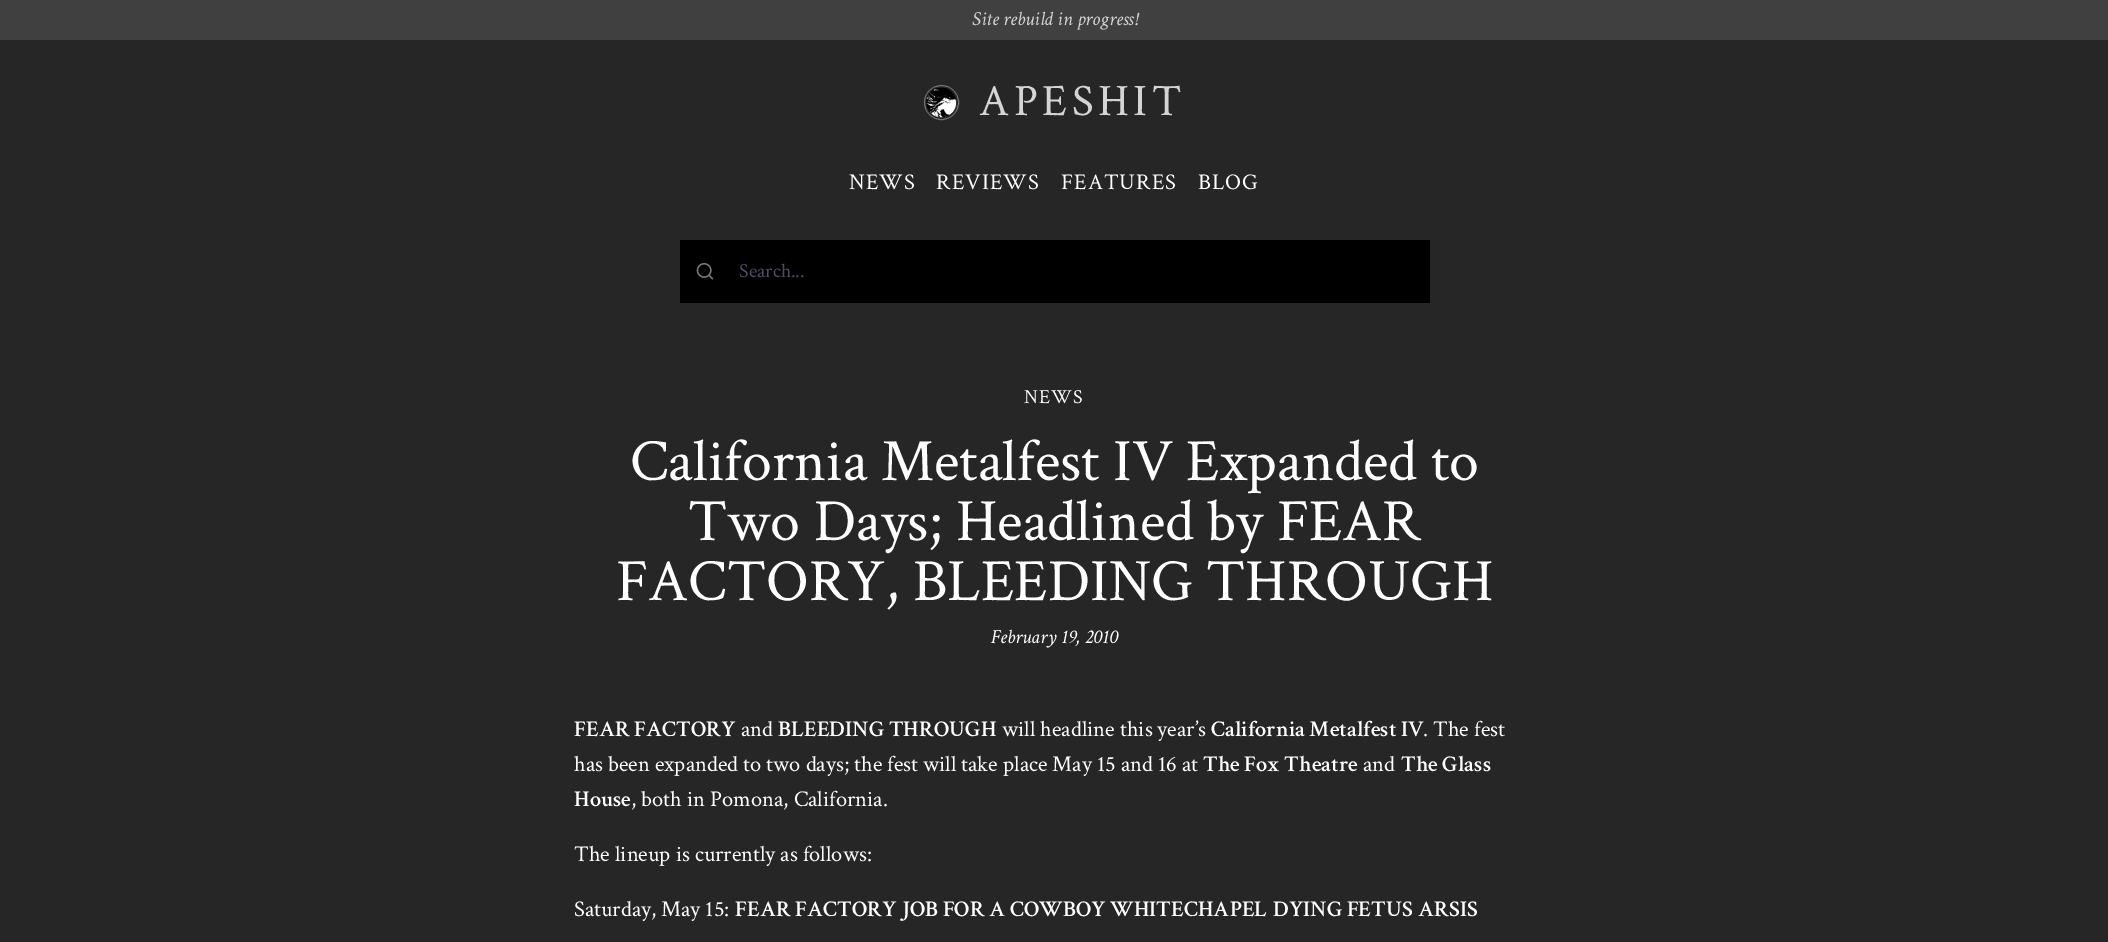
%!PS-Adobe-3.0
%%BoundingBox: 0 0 2108 942
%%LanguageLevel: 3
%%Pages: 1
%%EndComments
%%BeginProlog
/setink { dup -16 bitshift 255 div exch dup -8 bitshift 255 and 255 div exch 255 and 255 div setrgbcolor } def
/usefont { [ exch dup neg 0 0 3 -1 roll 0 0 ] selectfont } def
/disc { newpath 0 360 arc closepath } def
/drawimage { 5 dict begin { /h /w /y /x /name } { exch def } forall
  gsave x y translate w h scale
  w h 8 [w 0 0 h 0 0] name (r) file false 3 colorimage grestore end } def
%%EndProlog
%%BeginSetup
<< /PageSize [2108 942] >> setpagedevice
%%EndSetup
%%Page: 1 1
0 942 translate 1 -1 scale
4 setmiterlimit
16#262626 setink
0 0 2108 942 rectfill
16#404040 setink
0 0 2108 40 rectfill
/CrimsonText-Italic 20 usefont
16#D4D4D4 setink
972 25 moveto (Site rebuild in progress!) show
16#737373 setink
941.5 102.5 17 disc stroke
(img1.raw) 926 87 31 31 drawimage
/CrimsonText-Regular 45 usefont
16#D4D4D4 setink
979 115 moveto 4.5 0 (APESHIT) ashow
/CrimsonText-Regular 22.5 usefont
16#FFFFFF setink
849 189 moveto 1 0 (NEWS) ashow
936 189 moveto 1 0 (REVIEWS) ashow
1061 189 moveto 1 0 (FEATURES) ashow
1198 189 moveto 1 0 (BLOG) ashow
16#000000 setink
680 240 750 63 rectfill
(img2.raw) 696 262 18 18 drawimage
/CrimsonText-Regular 20 usefont
16#4D4C62 setink
739 277 moveto (Search...) show
16#FFFFFF setink
1024 403 moveto 1 0 (NEWS) ashow
/CrimsonText-Regular 60 usefont
[
    [(California Metalfest IV Expanded to) 630 480]
    [(Two Days; Headlined by FEAR) 688 540]
    [(FACTORY, BLEEDING THROUGH) 616 600]
] { aload pop moveto show } forall
/CrimsonText-Italic 20 usefont
991 643 moveto (February 19, 2010) show
/CrimsonText-SemiBold 22.5 usefont
574 736 moveto (FEAR FACTORY) show
/CrimsonText-Regular 22.5 usefont
741 736 moveto (and) show
/CrimsonText-SemiBold 22.5 usefont
778 736 moveto (BLEEDING THROUGH) show
/CrimsonText-Regular 22.5 usefont
1002 736 moveto (will headline this year’s) show
/CrimsonText-SemiBold 22.5 usefont
1211 736 moveto (California Metalfest IV) show
/CrimsonText-Regular 22.5 usefont
1423 736 moveto (. The fest) show
574 771 moveto (has been expanded to two days; the fest will take place May 15 and 16 at) show
/CrimsonText-SemiBold 22.5 usefont
1203 771 moveto (The Fox Theatre) show
/CrimsonText-Regular 22.5 usefont
1363 771 moveto (and) show
/CrimsonText-SemiBold 22.5 usefont
1401 771 moveto (The Glass) show
574 806 moveto (House) show
/CrimsonText-Regular 22.5 usefont
[
    [(, both in Pomona, California.) 631 806]
    [(The lineup is currently as follows:) 574 861]
    [(Saturday, May 15:) 574 916]
] { aload pop moveto show } forall
/CrimsonText-SemiBold 22.5 usefont
[
    [(FEAR FACTORY) 735 916]
    [(JOB FOR A COWBOY) 902 916]
    [(WHITECHAPEL) 1110 916]
    [(DYING FETUS) 1273 916]
    [(ARSIS) 1418 916]
] { aload pop moveto show } forall
showpage
%%EOF
